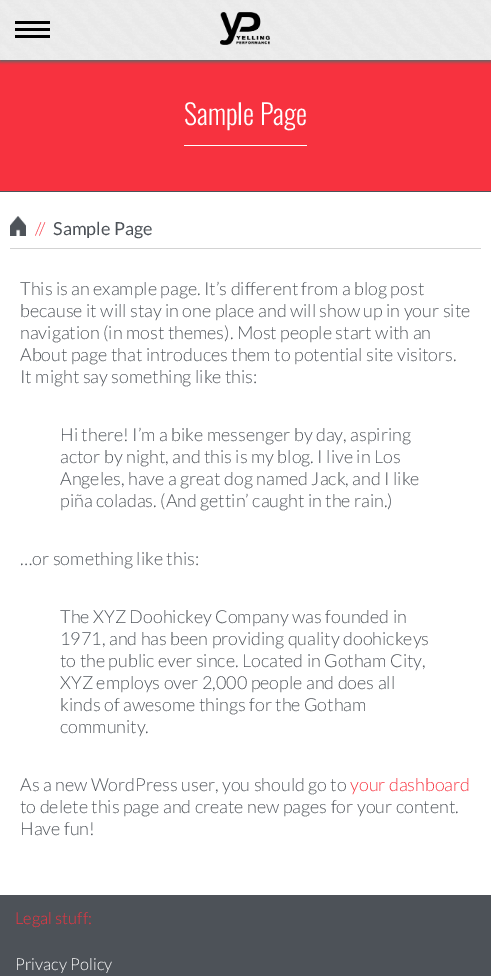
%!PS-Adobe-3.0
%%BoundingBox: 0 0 491 976
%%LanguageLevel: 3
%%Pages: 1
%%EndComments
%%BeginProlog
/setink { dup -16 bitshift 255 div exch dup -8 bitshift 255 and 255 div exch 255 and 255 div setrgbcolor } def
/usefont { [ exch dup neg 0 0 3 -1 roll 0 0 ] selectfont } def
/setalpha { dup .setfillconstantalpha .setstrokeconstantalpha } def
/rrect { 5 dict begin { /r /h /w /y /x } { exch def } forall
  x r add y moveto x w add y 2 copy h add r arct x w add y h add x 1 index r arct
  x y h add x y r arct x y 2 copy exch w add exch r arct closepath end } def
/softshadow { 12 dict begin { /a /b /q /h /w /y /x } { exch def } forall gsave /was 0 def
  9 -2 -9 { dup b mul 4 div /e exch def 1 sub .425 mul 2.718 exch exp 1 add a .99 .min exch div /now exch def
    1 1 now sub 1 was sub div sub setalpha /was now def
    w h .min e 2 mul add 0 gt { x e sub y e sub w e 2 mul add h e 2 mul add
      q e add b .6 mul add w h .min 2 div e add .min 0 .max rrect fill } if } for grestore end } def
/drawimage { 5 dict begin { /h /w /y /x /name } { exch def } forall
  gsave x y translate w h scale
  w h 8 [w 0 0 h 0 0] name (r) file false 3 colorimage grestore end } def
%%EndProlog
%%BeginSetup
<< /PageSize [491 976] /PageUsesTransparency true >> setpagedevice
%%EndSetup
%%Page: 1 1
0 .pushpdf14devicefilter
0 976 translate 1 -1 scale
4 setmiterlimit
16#FFFFFF setink
0 0 491 976 rectfill
16#F7323F setink
0 60 491 131 rectfill
16#666666 setink
0 2 491 60 0 1.5 1 softshadow
(img1.raw) 0 0 491 60 drawimage
(img2.raw) 15 21 35 17 drawimage
(img3.raw) 220 12 50 33 drawimage
16#4D5258 setink
0 191 491 1 rectfill
16#FFFFFF setink
184 145 123 1 rectfill
/Oswald-Light 28 usefont
184 125 moveto (Sample Page) show
16#D3D3D3 setink
10 248 471 1 rectfill
(img4.raw) 10 216 16 20 drawimage
/Lato-Light 18 usefont
16#F7323F setink
35 235 moveto -2 0 (//) ashow
/Lato-Regular 18 usefont
16#4D5258 setink
53 235 moveto (Sample Page) show
/Lato-Light 18 usefont
[
    [(This is an example page. It’s different from a blog post) 20 295]
    [(because it will stay in one place and will show up in your site) 20 317]
    [(navigation \(in most themes\). Most people start with an) 20 339]
    [(About page that introduces them to potential site visitors.) 20 361]
    [(It might say something like this:) 20 383]
    [(Hi there! I’m a bike messenger by day, aspiring) 60 441]
    [(actor by night, and this is my blog. I live in Los) 60 463]
    [(Angeles, have a great dog named Jack, and I like) 60 485]
    [(piña coladas. \(And gettin’ caught in the rain.\)) 60 507]
    [(…or something like this:) 20 565]
    [(The XYZ Doohickey Company was founded in) 60 623]
    [(1971, and has been providing quality doohickeys) 60 645]
    [(to the public ever since. Located in Gotham City,) 60 667]
    [(XYZ employs over 2,000 people and does all) 60 689]
    [(kinds of awesome things for the Gotham) 60 711]
    [(community.) 60 733]
    [(As a new WordPress user, you should go to) 20 791]
] { aload pop moveto show } forall
16#F7323F setink
350 791 moveto (your dashboard) show
16#4D5258 setink
20 813 moveto (to delete this page and create new pages for your content.) show
20 835 moveto (Have fun!) show
0 895 491 81 rectfill
/Lato-Light 16.5 usefont
16#F7323F setink
15 924 moveto (Legal stuff:) show
16#FFFFFF setink
15 970 moveto (Privacy Policy) show
.poppdf14devicefilter showpage
%%EOF
